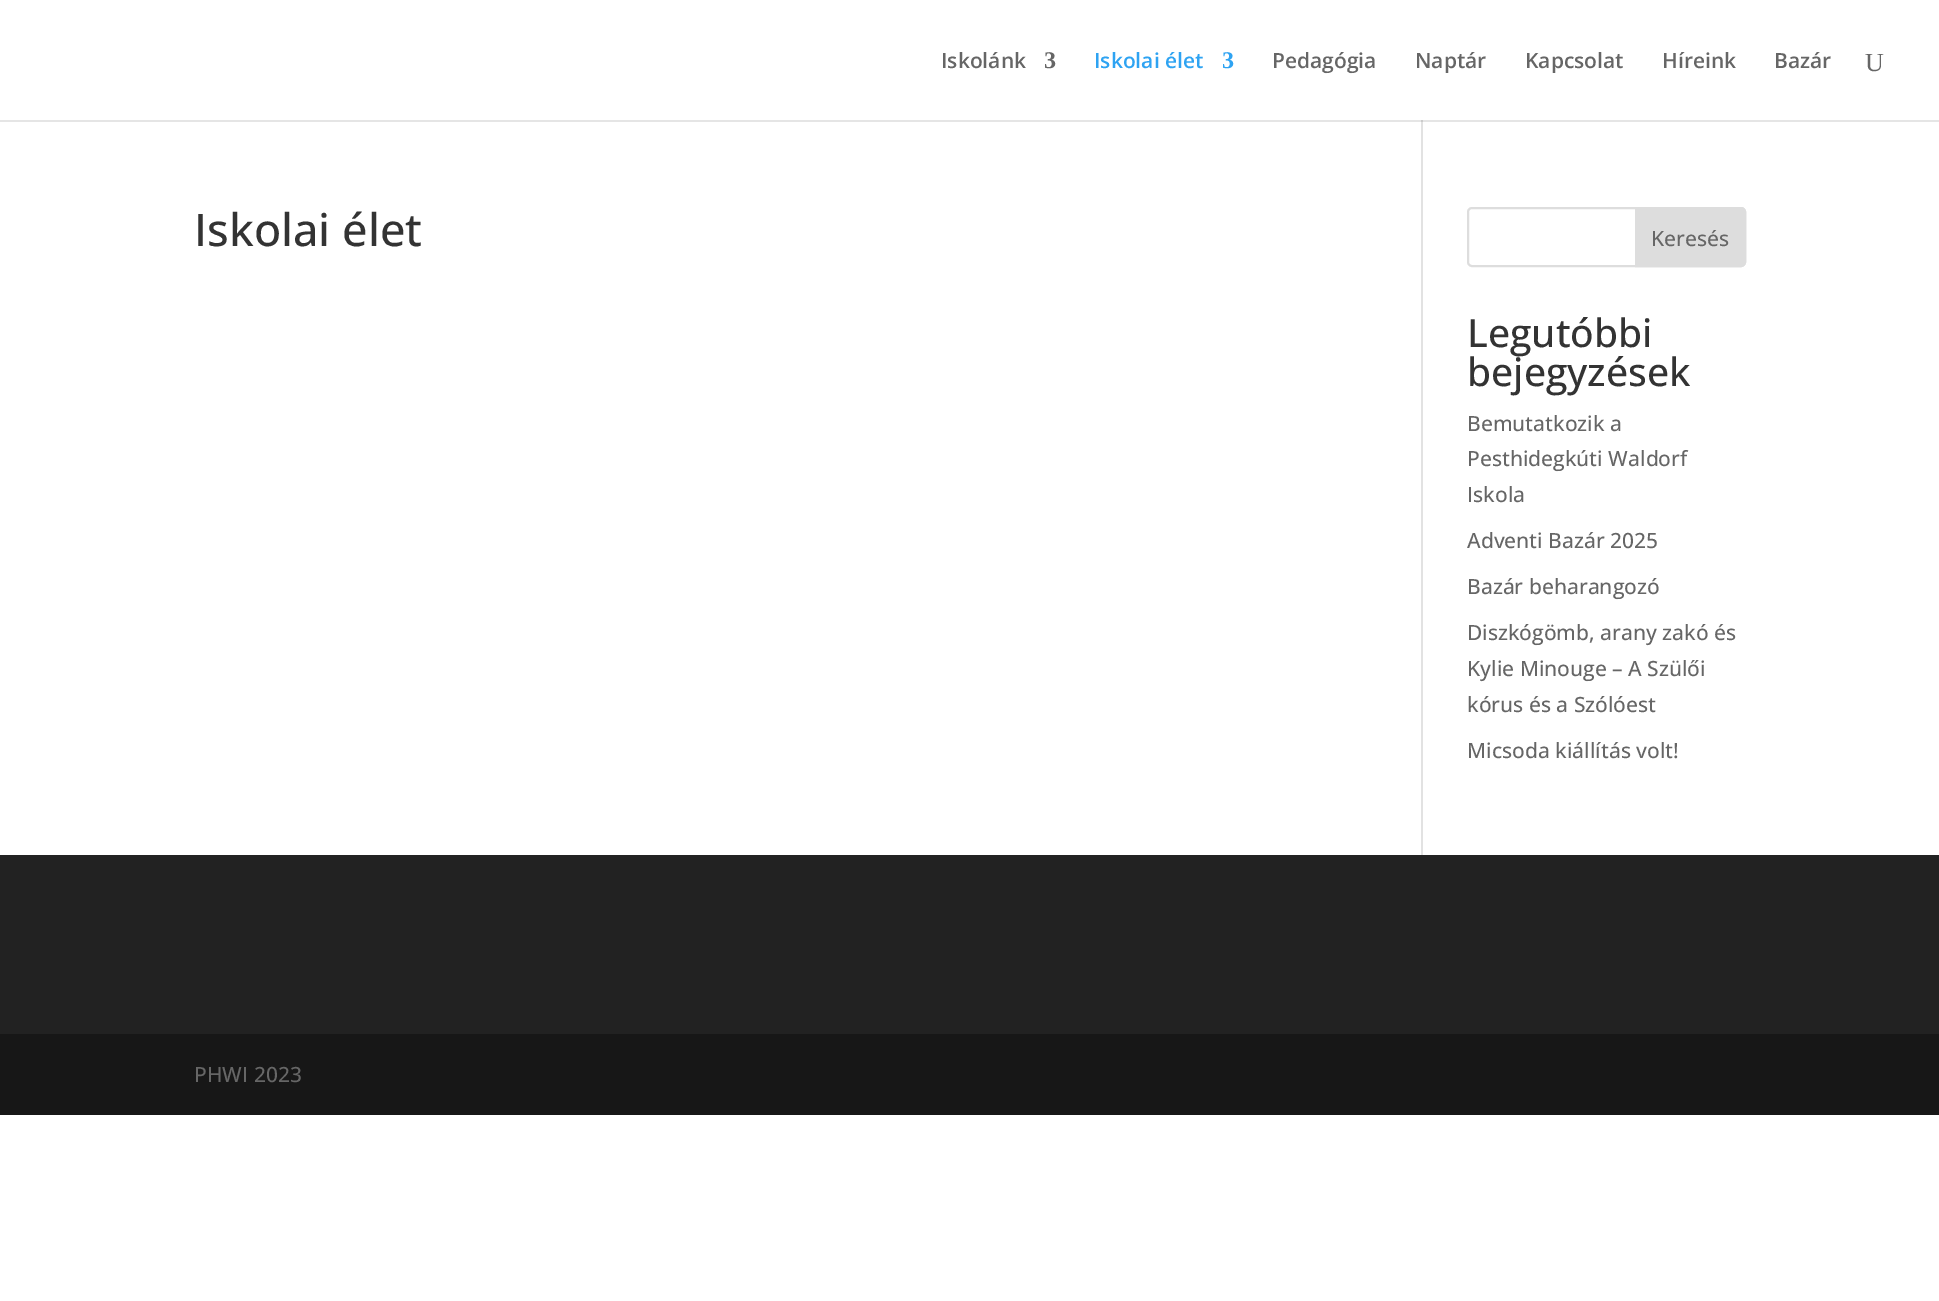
%!PS-Adobe-3.0
%%BoundingBox: 0 0 1939 1301
%%LanguageLevel: 3
%%Pages: 1
%%EndComments
%%BeginProlog
/setink { dup -16 bitshift 255 div exch dup -8 bitshift 255 and 255 div exch 255 and 255 div setrgbcolor } def
/usefont { [ exch dup neg 0 0 3 -1 roll 0 0 ] selectfont } def
/setalpha { dup .setfillconstantalpha .setstrokeconstantalpha } def
/rrect { 5 dict begin { /r /h /w /y /x } { exch def } forall
  x r add y moveto x w add y 2 copy h add r arct x w add y h add x 1 index r arct
  x y h add x y r arct x y 2 copy exch w add exch r arct closepath end } def
%%EndProlog
%%BeginSetup
<< /PageSize [1939 1301] /PageUsesTransparency true >> setpagedevice
%%EndSetup
%%Page: 1 1
0 .pushpdf14devicefilter
0 1301 translate 1 -1 scale
4 setmiterlimit
16#FFFFFF setink
0 0 1939 1301 rectfill
16#E2E2E2 setink
1421 120 2 735 rectfill
0.1 setalpha
16#000000 setink
0 120 moveto 0 122 lineto 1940 122 lineto 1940 2 lineto 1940 120 lineto closepath fill
/OpenSans-SemiBold 21 usefont
1 setalpha
16#666666 setink
941 68 moveto (Iskolánk) show
/LiberationSerif-Bold 24 usefont
1044 68 moveto (3) show
/OpenSans-SemiBold 21 usefont
16#2EA3F2 setink
1094 68 moveto (Iskolai élet) show
/LiberationSerif-Bold 24 usefont
1222 68 moveto (3) show
/OpenSans-SemiBold 21 usefont
16#666666 setink
[
    [(Pedagógia) 1272 68]
    [(Naptár) 1415 68]
    [(Kapcsolat) 1525 68]
    [(Híreink) 1662 68]
    [(Bazár) 1774 68]
] { aload pop moveto show } forall
/LiberationSerif-Regular 26 usefont
1865 71 moveto (U) show
/OpenSans-Medium 45 usefont
16#333333 setink
194 246 moveto (Iskolai élet) show
16#DDDDDD setink
2 setlinewidth
1468 208 277 58 4 rrect stroke
1636 208 moveto 1741 208 lineto 1743 208 1745 210 1745 212 curveto 1745 262 lineto 1745 264 1743 266 1741 266 curveto 1636 266 lineto closepath gsave fill grestore
stroke
/OpenSans-Medium 21 usefont
16#666666 setink
1651 246 moveto (Keresés) show
/OpenSans-Medium 39 usefont
16#333333 setink
1467 347 moveto (Legutóbbi) show
1467 386 moveto (bejegyzések) show
/OpenSans-Medium 21 usefont
16#666666 setink
[
    [(Bemutatkozik a) 1467 431]
    [(Pesthidegkúti Waldorf) 1467 466]
    [(Iskola) 1467 502]
    [(Adventi Bazár 2025) 1467 548]
    [(Bazár beharangozó) 1467 594]
    [(Diszkógömb, arany zakó és) 1467 640]
    [(Kylie Minouge – A Szülői) 1467 676]
    [(kórus és a Szólóest) 1467 712]
    [(Micsoda kiállítás volt!) 1467 758]
] { aload pop moveto show } forall
16#222222 setink
0 855 1939 179 rectfill
16#171717 setink
0 1034 1939 81 rectfill
16#666666 setink
194 1082 moveto (PHWI 2023) show
.poppdf14devicefilter showpage
%%EOF
